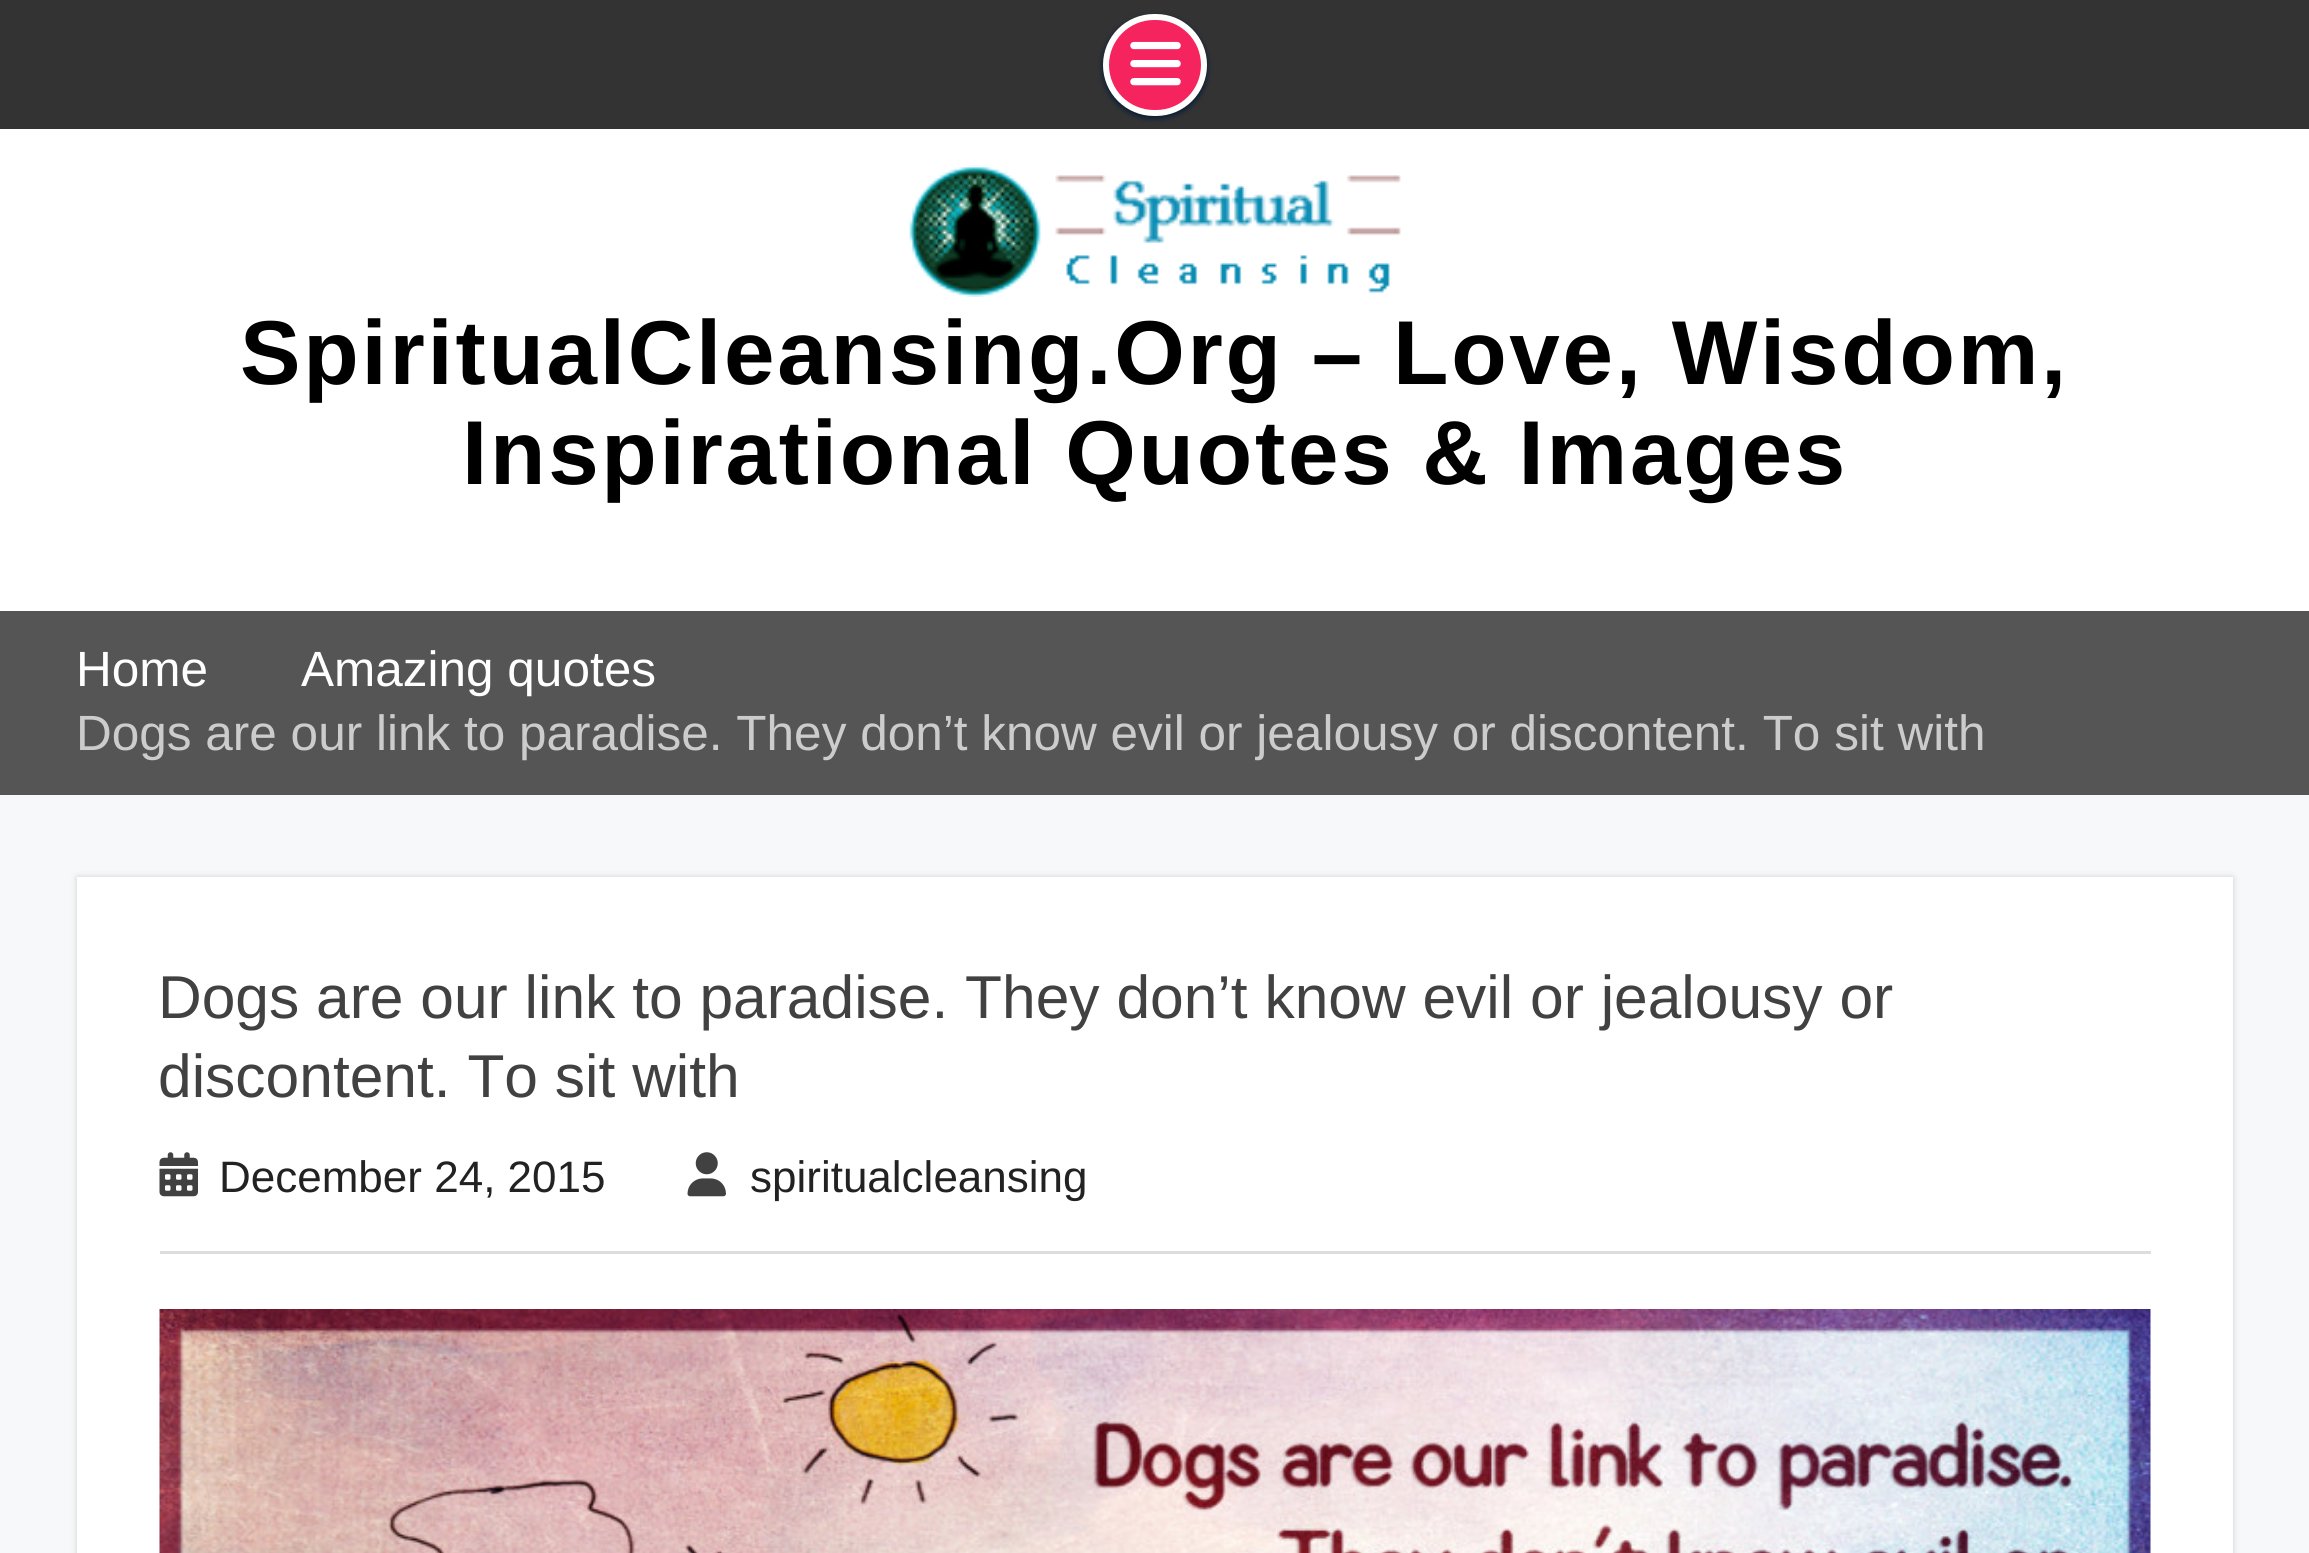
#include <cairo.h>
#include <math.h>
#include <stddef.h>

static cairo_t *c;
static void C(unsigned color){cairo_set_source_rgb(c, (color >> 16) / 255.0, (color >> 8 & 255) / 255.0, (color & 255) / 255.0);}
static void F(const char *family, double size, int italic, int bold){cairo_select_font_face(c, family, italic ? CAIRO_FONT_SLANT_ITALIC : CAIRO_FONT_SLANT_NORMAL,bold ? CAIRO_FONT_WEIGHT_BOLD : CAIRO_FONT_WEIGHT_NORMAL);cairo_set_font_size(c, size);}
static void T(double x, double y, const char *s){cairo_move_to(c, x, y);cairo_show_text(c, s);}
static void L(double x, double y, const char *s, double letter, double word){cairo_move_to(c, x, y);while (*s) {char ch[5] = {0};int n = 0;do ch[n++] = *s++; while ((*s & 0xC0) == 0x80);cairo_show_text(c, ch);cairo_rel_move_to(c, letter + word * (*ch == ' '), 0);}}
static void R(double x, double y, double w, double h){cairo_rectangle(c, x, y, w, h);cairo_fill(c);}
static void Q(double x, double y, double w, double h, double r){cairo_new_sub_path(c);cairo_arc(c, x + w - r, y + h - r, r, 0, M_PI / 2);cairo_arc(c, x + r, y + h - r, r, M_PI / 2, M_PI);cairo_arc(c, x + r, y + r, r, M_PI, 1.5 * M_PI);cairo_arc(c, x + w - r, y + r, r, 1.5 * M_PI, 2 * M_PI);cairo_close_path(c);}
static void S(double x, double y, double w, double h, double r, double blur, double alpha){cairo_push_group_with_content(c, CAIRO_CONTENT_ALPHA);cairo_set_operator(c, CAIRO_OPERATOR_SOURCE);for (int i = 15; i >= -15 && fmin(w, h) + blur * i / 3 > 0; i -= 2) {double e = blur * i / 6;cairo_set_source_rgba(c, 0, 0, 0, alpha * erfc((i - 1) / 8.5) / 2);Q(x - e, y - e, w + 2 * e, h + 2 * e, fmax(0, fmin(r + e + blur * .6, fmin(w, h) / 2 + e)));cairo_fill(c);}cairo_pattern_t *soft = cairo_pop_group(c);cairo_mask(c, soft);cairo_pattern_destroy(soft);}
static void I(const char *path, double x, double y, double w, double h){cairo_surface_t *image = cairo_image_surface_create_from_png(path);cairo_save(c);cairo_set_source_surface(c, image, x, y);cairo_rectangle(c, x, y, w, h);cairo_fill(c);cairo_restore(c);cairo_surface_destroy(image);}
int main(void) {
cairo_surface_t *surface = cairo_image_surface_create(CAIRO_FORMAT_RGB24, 2309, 1553);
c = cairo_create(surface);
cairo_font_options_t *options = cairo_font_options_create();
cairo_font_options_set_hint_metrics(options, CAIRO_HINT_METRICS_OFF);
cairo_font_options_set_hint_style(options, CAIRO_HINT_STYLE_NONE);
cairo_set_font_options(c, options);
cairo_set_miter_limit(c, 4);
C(0xffffff);
cairo_paint(c);
C(0x333333);
R(0,0,2309,129);
C(0x001837);
S(1103,17,104,101,50.5,3,1);
C(0xf5245f);
Q(1106,17,98,96,48);
cairo_fill_preserve(c);
C(0xfffffe);
cairo_set_line_width(c,6);
cairo_stroke(c);
I("1.png",1130,41,51,45);
I("2.png",909,165,492,132);
F("Liberation Sans",90.75,0,1);
C(0x000000);
L(240,384,"SpiritualCleansing.Org – Love, Wisdom,",2.75,0);
L(462,484,"Inspirational Quotes & Images",2.75,0);
C(0x555555);
R(0,611,2309,184);
F("Liberation Sans",49.5,0,0);
C(0xffffff);
T(76,686,"Home");
T(301,686,"Amazing quotes");
C(0xcccccc);
T(76,750,"Dogs are our link to paradise. They don’t know evil or jealousy or discontent. To sit with");
C(0xf7f8fa);
R(0,795,2309,758);
C(0xcfcfcf);
S(77,877,2156,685,0,3,1);
C(0xffffff);
R(77,877,2156,676);
F("Liberation Sans",60.5,0,0);
C(0x414141);
T(158,1018,"Dogs are our link to paradise. They don’t know evil or jealousy or");
T(158,1097,"discontent. To sit with");
C(0xdddddd);
R(160,1251,1991,3);
I("3.png",159,1152,39,45);
F("Liberation Sans",44,0,0);
C(0x222222);
T(219,1192,"December 24, 2015");
I("4.png",687,1152,39,45);
T(750,1192,"spiritualcleansing");
I("5.png",159,1309,1992,244);
cairo_surface_write_to_png(surface, "o.png");
cairo_font_options_destroy(options);
cairo_destroy(c);
cairo_surface_destroy(surface);
return 0;
}
